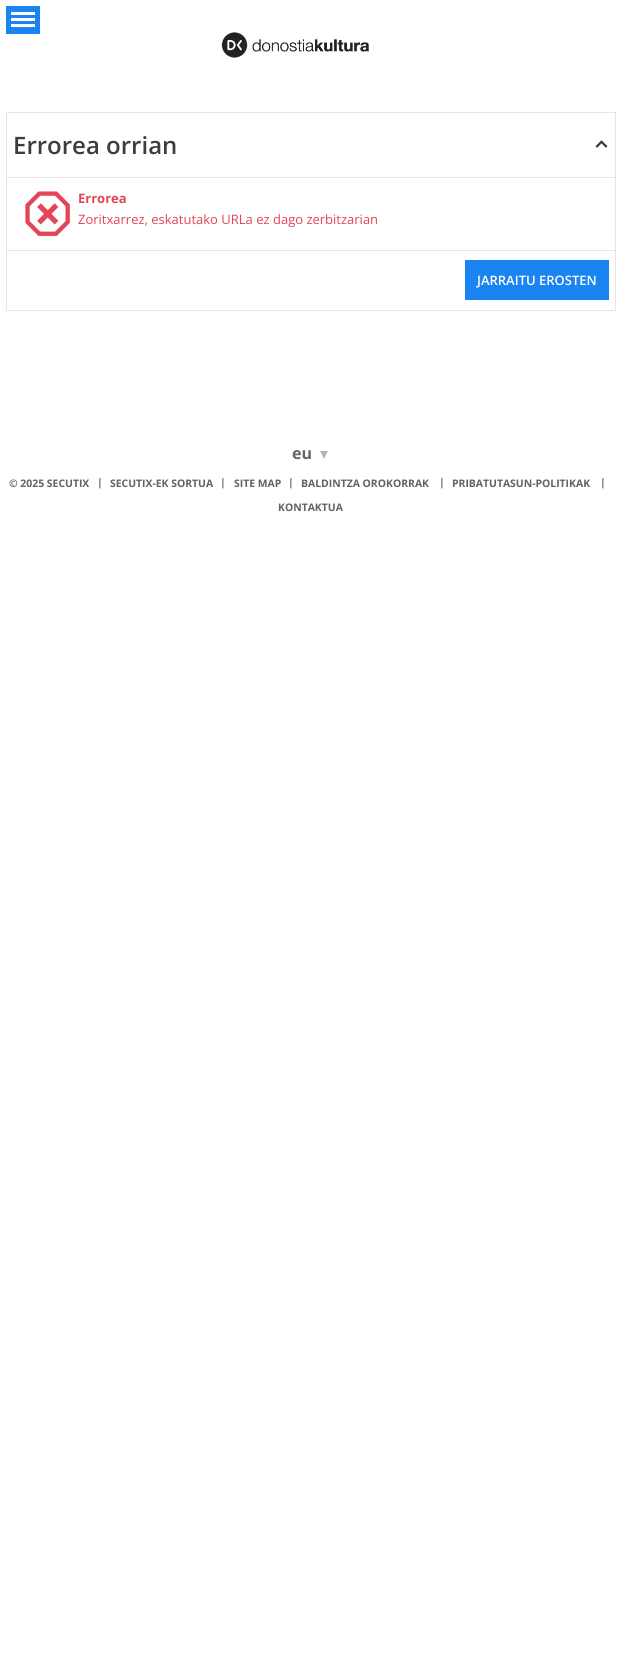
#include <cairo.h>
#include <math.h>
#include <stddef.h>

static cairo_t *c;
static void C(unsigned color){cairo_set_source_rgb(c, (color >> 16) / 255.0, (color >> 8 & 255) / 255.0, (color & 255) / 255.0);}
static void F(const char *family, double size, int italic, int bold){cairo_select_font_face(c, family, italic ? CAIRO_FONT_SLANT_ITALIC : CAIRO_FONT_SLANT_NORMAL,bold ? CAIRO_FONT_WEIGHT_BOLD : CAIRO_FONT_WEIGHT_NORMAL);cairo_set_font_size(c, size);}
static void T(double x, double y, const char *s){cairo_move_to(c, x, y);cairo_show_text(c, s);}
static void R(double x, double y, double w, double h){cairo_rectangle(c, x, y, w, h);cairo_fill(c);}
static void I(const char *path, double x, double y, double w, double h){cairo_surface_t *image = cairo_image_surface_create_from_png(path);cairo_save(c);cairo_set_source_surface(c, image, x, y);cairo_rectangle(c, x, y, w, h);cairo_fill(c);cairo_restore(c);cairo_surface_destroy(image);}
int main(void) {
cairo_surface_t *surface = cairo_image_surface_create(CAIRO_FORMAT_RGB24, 620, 1668);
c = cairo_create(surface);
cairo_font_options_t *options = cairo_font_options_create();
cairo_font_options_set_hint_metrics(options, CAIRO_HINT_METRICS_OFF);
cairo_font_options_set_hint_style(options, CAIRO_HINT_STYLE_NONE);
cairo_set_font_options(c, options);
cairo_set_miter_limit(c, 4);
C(0xffffff);
cairo_paint(c);
C(0x1a84f1);
R(6,6,34,28);
C(0xffffff);
R(11,12,24,3);
R(11,18,24,3);
R(11,24,24,3);
I("1.png",221,32,148,26);
cairo_rectangle(c,6.5,112.5,609,198);
C(0xe6e6e6);
cairo_set_line_width(c,1);
cairo_stroke(c);
R(7,177,608,1);
I("2.png",595,140,13,8);
F("Open Sans SemiBold",24,0,0);
C(0x3b3d40);
T(13,154,"Errorea orrian");
C(0xe6e6e6);
R(7,250,608,1);
F("Open Sans",13,0,1);
C(0xe54554);
T(78,203,"Errorea");
I("3.png",25,191,45,45);
F("Open Sans",13,0,0);
T(78,224,"Zoritxarrez, eskatutako URLa ez dago zerbitzarian");
C(0x1a84f1);
R(465,260,144,40);
F("Open Sans SemiBold",13,0,0);
C(0xffffff);
T(477,285,"JARRAITU EROSTEN");
F("Open Sans",16,0,1);
C(0x626262);
T(292,459,"eu");
C(0xb4b4b4);
cairo_new_path(c);
cairo_move_to(c,320,451);
cairo_line_to(c,328,451);
cairo_line_to(c,324,459);
cairo_close_path(c);
cairo_fill(c);
F("Open Sans",10.4,0,1);
C(0x626262);
T(9,487,"© 2025 SECUTIX");
T(97,486,"|");
T(110,487,"SECUTIX-EK SORTUA");
T(220,486,"|");
T(234,487,"SITE MAP");
T(288,486,"|");
T(301,487,"BALDINTZA OROKORRAK");
T(439,486,"|");
T(452,487,"PRIBATUTASUN-POLITIKAK");
T(600,486,"|");
T(278,511,"KONTAKTUA");
cairo_surface_write_to_png(surface, "o.png");
cairo_font_options_destroy(options);
cairo_destroy(c);
cairo_surface_destroy(surface);
return 0;
}
